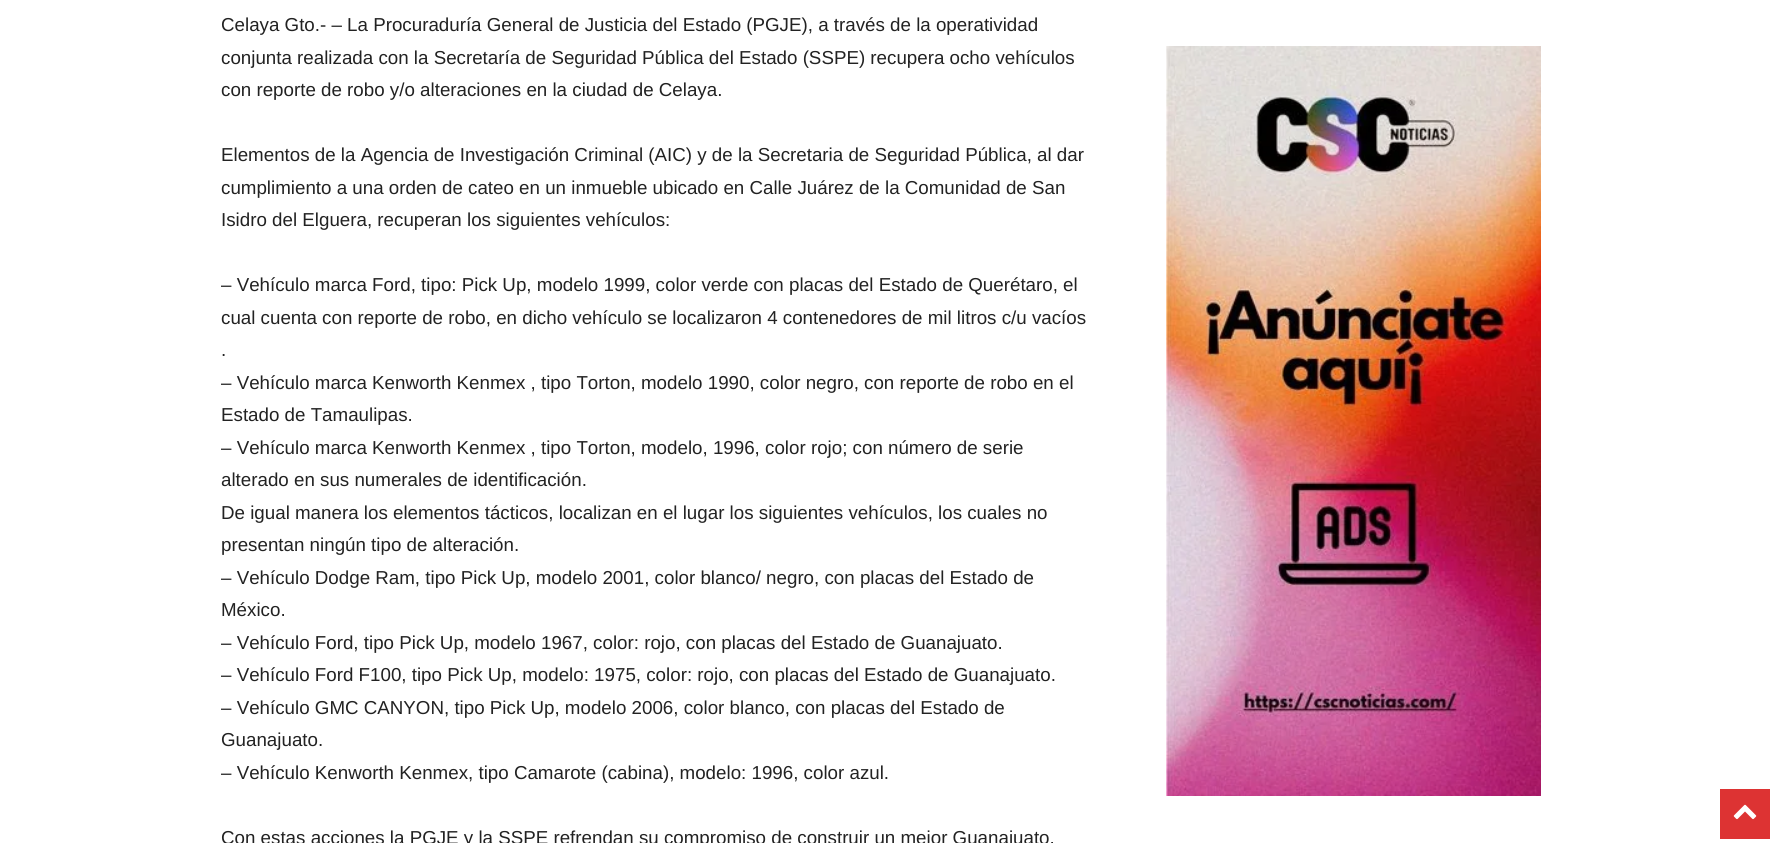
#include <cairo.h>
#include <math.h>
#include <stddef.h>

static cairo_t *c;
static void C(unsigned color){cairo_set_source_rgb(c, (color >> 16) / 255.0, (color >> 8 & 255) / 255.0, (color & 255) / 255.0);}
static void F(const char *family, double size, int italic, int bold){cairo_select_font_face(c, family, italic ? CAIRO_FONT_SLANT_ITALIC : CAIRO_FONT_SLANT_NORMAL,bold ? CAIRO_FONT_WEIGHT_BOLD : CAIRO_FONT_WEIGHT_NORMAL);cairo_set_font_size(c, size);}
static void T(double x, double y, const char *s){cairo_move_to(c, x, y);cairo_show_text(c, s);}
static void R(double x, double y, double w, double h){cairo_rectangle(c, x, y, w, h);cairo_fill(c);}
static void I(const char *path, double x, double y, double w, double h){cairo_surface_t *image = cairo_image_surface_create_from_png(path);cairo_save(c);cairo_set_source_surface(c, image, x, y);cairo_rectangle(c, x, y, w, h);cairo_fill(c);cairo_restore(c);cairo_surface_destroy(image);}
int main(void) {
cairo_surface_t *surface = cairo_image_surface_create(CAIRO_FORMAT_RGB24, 1776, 843);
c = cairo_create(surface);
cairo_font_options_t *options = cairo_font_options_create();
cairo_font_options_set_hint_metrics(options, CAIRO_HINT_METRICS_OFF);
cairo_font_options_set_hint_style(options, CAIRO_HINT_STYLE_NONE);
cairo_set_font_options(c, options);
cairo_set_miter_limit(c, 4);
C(0xffffff);
cairo_paint(c);
F("Liberation Sans",18.75,0,0);
C(0x222222);
T(221,31,"Celaya Gto.- – La Procuraduría General de Justicia del Estado (PGJE), a través de la operatividad");
T(221,64,"conjunta realizada con la Secretaría de Seguridad Pública del Estado (SSPE) recupera ocho vehículos");
T(221,96,"con reporte de robo y/o alteraciones en la ciudad de Celaya.");
T(221,161,"Elementos de la Agencia de Investigación Criminal (AIC) y de la Secretaria de Seguridad Pública, al dar");
T(221,194,"cumplimiento a una orden de cateo en un inmueble ubicado en Calle Juárez de la Comunidad de San");
T(221,226,"Isidro del Elguera, recuperan los siguientes vehículos:");
T(221,291,"– Vehículo marca Ford, tipo: Pick Up, modelo 1999, color verde con placas del Estado de Querétaro, el");
T(221,324,"cual cuenta con reporte de robo, en dicho vehículo se localizaron 4 contenedores de mil litros c/u vacíos");
T(221,356,".");
T(221,389,"– Vehículo marca Kenworth Kenmex , tipo Torton, modelo 1990, color negro, con reporte de robo en el");
T(221,421,"Estado de Tamaulipas.");
T(221,454,"– Vehículo marca Kenworth Kenmex , tipo Torton, modelo, 1996, color rojo; con número de serie");
T(221,486,"alterado en sus numerales de identificación.");
T(221,519,"De igual manera los elementos tácticos, localizan en el lugar los siguientes vehículos, los cuales no");
T(221,551,"presentan ningún tipo de alteración.");
T(221,584,"– Vehículo Dodge Ram, tipo Pick Up, modelo 2001, color blanco/ negro, con placas del Estado de");
T(221,616,"México.");
T(221,649,"– Vehículo Ford, tipo Pick Up, modelo 1967, color: rojo, con placas del Estado de Guanajuato.");
T(221,681,"– Vehículo Ford F100, tipo Pick Up, modelo: 1975, color: rojo, con placas del Estado de Guanajuato.");
T(221,714,"– Vehículo GMC CANYON, tipo Pick Up, modelo 2006, color blanco, con placas del Estado de");
T(221,746,"Guanajuato.");
T(221,779,"– Vehículo Kenworth Kenmex, tipo Camarote (cabina), modelo: 1996, color azul.");
T(221,844,"Con estas acciones la PGJE y la SSPE refrendan su compromiso de construir un mejor Guanajuato.");
I("1.png",1166,46,375,750);
C(0xdd3333);
R(1720,789,50,50);
I("2.png",1733,804,24,16);
cairo_surface_write_to_png(surface, "o.png");
cairo_font_options_destroy(options);
cairo_destroy(c);
cairo_surface_destroy(surface);
return 0;
}
